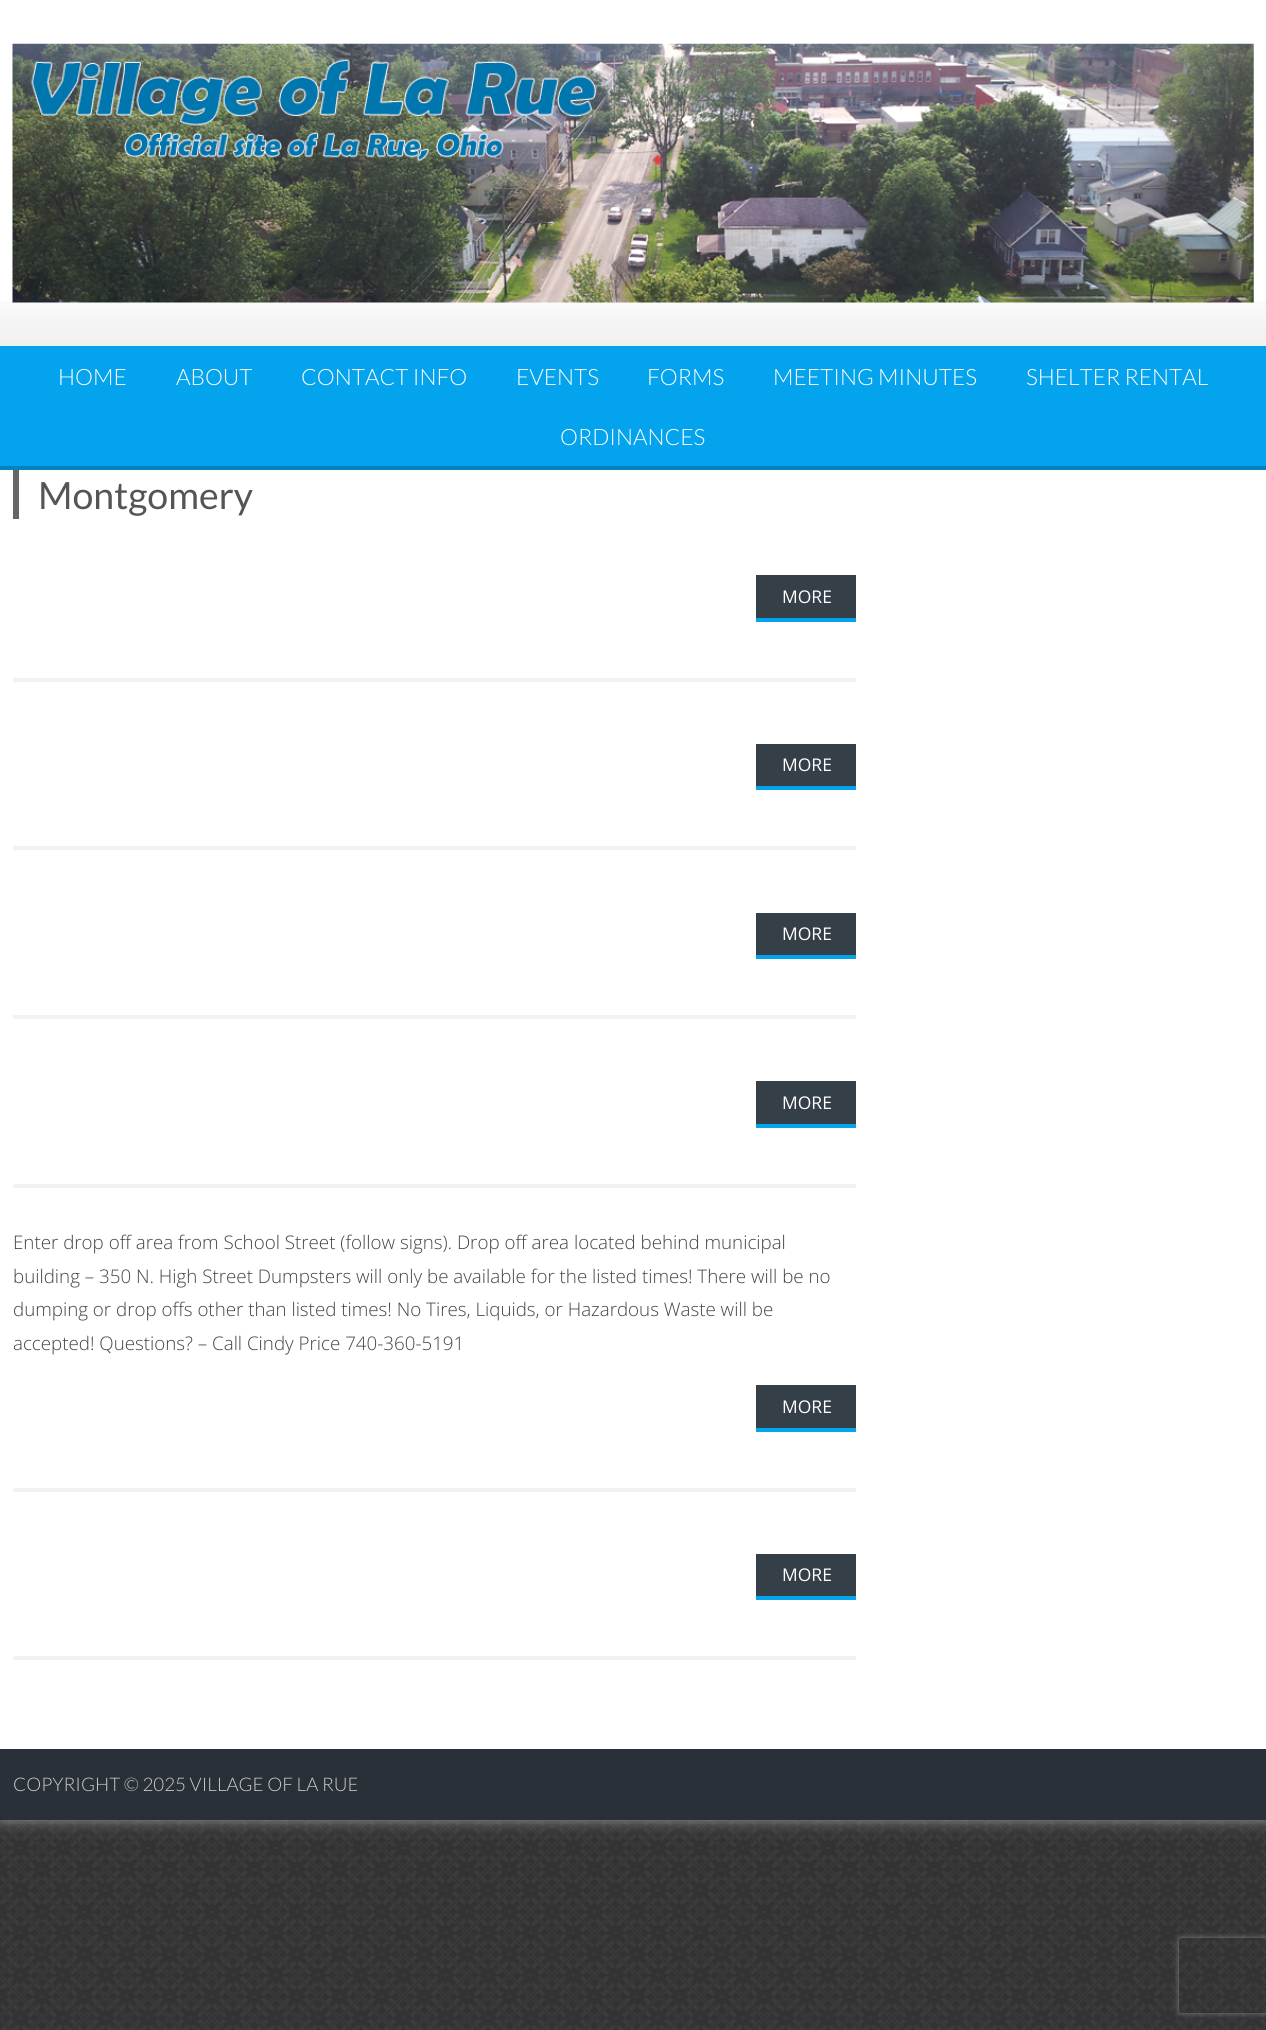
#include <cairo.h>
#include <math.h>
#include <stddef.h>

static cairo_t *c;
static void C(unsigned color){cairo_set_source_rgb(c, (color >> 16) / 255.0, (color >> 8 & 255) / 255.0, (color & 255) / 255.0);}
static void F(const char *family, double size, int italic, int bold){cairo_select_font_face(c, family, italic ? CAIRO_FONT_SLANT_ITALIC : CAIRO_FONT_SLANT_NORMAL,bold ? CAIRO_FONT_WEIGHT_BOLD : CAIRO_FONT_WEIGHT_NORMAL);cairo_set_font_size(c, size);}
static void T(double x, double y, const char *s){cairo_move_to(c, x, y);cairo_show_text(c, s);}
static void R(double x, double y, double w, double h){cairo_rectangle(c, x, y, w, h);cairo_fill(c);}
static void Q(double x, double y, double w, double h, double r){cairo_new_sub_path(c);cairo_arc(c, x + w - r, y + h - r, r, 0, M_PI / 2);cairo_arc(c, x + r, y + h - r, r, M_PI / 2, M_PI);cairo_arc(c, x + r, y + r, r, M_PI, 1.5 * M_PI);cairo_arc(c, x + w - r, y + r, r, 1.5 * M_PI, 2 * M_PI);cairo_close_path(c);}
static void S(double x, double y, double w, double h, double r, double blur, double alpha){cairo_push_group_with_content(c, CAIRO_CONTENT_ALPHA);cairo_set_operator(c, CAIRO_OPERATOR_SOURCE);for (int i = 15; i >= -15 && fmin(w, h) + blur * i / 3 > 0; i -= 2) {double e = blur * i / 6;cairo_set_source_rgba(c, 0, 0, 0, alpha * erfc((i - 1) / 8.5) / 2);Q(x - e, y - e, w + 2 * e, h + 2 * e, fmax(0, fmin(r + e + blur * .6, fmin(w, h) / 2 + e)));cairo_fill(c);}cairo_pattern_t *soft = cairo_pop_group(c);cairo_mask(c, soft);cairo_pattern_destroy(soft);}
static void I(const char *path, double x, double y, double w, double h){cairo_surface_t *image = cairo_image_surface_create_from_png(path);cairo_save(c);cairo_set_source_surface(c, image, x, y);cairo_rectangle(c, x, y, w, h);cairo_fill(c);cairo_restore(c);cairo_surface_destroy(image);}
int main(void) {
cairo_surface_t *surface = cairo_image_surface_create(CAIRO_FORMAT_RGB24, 1266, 2030);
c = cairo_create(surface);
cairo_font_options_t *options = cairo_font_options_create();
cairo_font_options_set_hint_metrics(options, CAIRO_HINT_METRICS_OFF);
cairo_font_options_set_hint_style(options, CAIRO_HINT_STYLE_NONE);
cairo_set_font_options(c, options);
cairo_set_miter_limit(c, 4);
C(0xffffff);
cairo_paint(c);
I("1.png",0,1820,1266,210);
C(0x999999);
S(0,0,1266,1820,0,7.5,1);
C(0xffffff);
R(0,0,1266,1749);
I("2.png",0,301,1266,45);
I("3.png",12,43,1242,260);
C(0x04a3ed);
R(0,346,1266,120);
C(0x0382be);
R(0,466,1266,4);
F("Lato Light",22.5,0,0);
C(0xffffff);
T(58,385,"HOME");
T(176,385,"ABOUT");
T(301,385,"CONTACT INFO");
T(516,385,"EVENTS");
T(647,385,"FORMS");
T(773,385,"MEETING MINUTES");
T(1026,385,"SHELTER RENTAL");
T(560,445,"ORDINANCES");
C(0x666666);
R(13,470,6,49);
F("Lato",37.5,0,0);
C(0x555555);
T(38,509,"Montgomery");
C(0xf1f2f3);
R(13,678,843,4);
C(0x353f47);
R(756,575,100,43);
C(0x04a3ed);
R(756,618,100,4);
F("Open Sans",17.5,0,0);
C(0xffffff);
T(782,603,"MORE");
C(0xf1f2f3);
R(13,846,843,4);
C(0x353f47);
R(756,744,100,42);
C(0x04a3ed);
R(756,786,100,4);
C(0xffffff);
T(782,771,"MORE");
C(0xf1f2f3);
R(13,1015,843,4);
C(0x353f47);
R(756,913,100,42);
C(0x04a3ed);
R(756,955,100,4);
C(0xffffff);
T(782,940,"MORE");
C(0xf1f2f3);
R(13,1184,843,4);
C(0x353f47);
R(756,1081,100,43);
C(0x04a3ed);
R(756,1124,100,4);
C(0xffffff);
T(782,1109,"MORE");
C(0xf1f2f3);
R(13,1488,843,4);
F("Open Sans Light",18.75,0,0);
C(0x444444);
T(13,1249,"Enter drop off area from School Street (follow signs). Drop off area located behind municipal");
T(13,1283,"building – 350 N. High Street Dumpsters will only be available for the listed times! There will be no");
T(13,1316,"dumping or drop offs other than listed times! No Tires, Liquids, or Hazardous Waste will be");
T(13,1350,"accepted! Questions? – Call Cindy Price 740-360-5191");
C(0x353f47);
R(756,1385,100,43);
C(0x04a3ed);
R(756,1428,100,4);
F("Open Sans",17.5,0,0);
C(0xffffff);
T(782,1413,"MORE");
C(0xf1f2f3);
R(13,1656,843,4);
C(0x353f47);
R(756,1554,100,42);
C(0x04a3ed);
R(756,1596,100,4);
C(0xffffff);
T(782,1581,"MORE");
C(0x293037);
R(0,1749,1266,71);
F("Lato Light",18.75,0,0);
C(0xcccccc);
T(13,1791,"COPYRIGHT © 2025 VILLAGE OF LA RUE");
cairo_save(c);
cairo_set_fill_rule(c,CAIRO_FILL_RULE_EVEN_ODD);
cairo_new_path(c);
cairo_move_to(c,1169,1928);
cairo_line_to(c,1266,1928);
cairo_line_to(c,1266,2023);
cairo_line_to(c,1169,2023);
cairo_close_path(c);
cairo_move_to(c,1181.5,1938);
cairo_line_to(c,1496.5,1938);
cairo_curve_to(c,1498,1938,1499,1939,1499,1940.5);
cairo_line_to(c,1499,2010.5);
cairo_curve_to(c,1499,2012,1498,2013,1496.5,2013);
cairo_line_to(c,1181.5,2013);
cairo_curve_to(c,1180,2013,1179,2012,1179,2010.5);
cairo_line_to(c,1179,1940.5);
cairo_curve_to(c,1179,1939,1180,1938,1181.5,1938);
cairo_close_path(c);
cairo_clip(c);
C(0x808080);
S(1179,1938,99,75,2.5,3,1);
cairo_restore(c);
cairo_surface_write_to_png(surface, "o.png");
cairo_font_options_destroy(options);
cairo_destroy(c);
cairo_surface_destroy(surface);
return 0;
}
